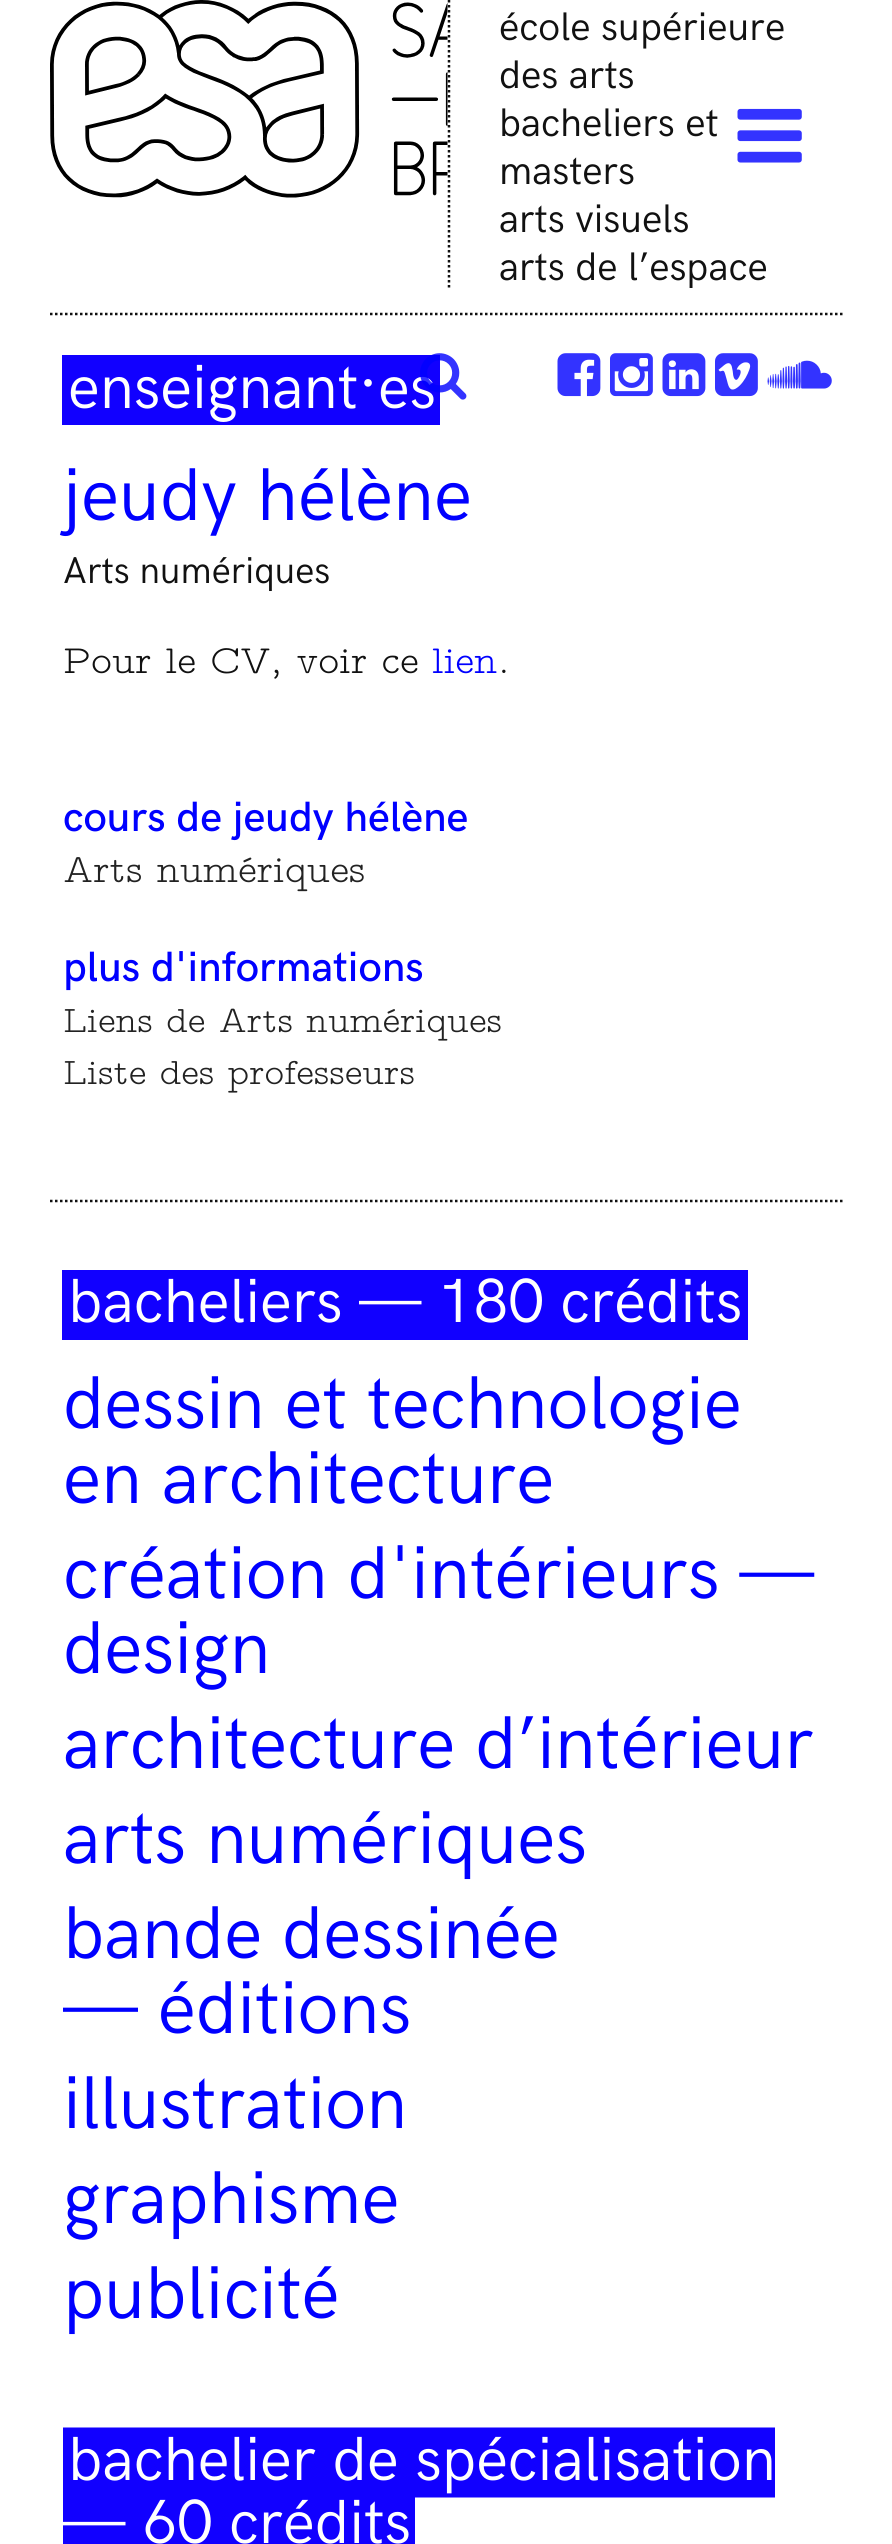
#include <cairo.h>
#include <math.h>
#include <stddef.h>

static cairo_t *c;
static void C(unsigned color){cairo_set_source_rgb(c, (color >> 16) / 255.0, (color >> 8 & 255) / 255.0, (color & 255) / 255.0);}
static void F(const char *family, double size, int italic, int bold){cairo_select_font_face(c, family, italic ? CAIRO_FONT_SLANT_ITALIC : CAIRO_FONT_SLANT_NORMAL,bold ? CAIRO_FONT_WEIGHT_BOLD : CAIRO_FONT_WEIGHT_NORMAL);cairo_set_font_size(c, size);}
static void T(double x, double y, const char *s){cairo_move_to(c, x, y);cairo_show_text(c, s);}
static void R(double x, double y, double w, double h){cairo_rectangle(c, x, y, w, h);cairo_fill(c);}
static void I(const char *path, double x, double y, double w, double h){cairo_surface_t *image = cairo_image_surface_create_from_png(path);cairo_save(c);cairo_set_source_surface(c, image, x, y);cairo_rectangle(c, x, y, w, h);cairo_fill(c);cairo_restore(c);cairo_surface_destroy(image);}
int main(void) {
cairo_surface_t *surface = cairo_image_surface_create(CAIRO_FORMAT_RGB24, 892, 2544);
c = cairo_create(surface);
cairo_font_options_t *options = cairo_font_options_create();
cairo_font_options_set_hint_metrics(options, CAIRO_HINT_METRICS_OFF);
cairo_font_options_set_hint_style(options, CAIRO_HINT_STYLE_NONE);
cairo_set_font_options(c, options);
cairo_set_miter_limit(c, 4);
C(0xffffff);
cairo_paint(c);
I("1.png",50,0,398,198);
cairo_new_path(c);
cairo_move_to(c,449,0);
cairo_line_to(c,449,287.5);
C(0x111111);
cairo_set_line_width(c,2.5);
cairo_set_dash(c,(double[]){2.5,2.5},2,0);
cairo_stroke(c);
F("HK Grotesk",40,0,0);
T(499,40,"école supérieure");
T(499,88,"des arts");
T(499,136,"bacheliers et");
T(499,184,"masters");
T(499,232,"arts visuels");
cairo_save(c);
cairo_rectangle(c,450,0,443,288);
cairo_clip(c);
T(499,280,"arts de l’espace");
cairo_restore(c);
I("2.png",737,108,65,55);
C(0x1100ff);
R(62,355,378,70);
F("HK Grotesk",62.5,0,0);
C(0xffffff);
T(68,408,"enseignant·es");
I("3.png",420,353,47,47);
I("4.png",557,353,44,44);
I("5.png",610,353,43,44);
I("6.png",662,353,44,44);
I("7.png",715,353,43,44);
I("8.png",767,360,65,29);
cairo_new_path(c);
cairo_move_to(c,50,314);
cairo_line_to(c,842.5,314);
C(0x111111);
cairo_stroke(c);
F("HK Grotesk",75,0,0);
C(0x0000ff);
T(63,520,"jeudy hélène");
F("HK Grotesk",37.5,0,0);
C(0x111111);
T(63,583,"Arts numériques");
F("Latin Modern Mono Prop Light",40,0,0);
T(63,673,"Pour le CV, voir ce");
C(0x0000ff);
T(432,673,"lien");
C(0x111111);
T(498,673,".");
F("HK Grotesk Medium",42.5,0,0);
C(0x0000ff);
T(63,831,"cours de jeudy hélène");
F("Latin Modern Mono Prop Light",40,0,0);
C(0x222222);
T(63,882,"Arts numériques");
F("HK Grotesk Medium",42.5,0,0);
C(0x0000ff);
T(63,981,"plus d'informations");
F("Latin Modern Mono Prop Light",37.5,0,0);
C(0x222222);
T(63,1032,"Liens de Arts numériques");
T(63,1084,"Liste des professeurs");
cairo_new_path(c);
cairo_move_to(c,50,1201);
cairo_line_to(c,842.5,1201);
C(0x111111);
cairo_stroke(c);
C(0x1100ff);
R(62,1270,686,70);
F("HK Grotesk",62.5,0,0);
C(0xffffff);
T(68,1322,"bacheliers — 180 crédits");
F("HK Grotesk",75,0,0);
C(0x0000ff);
T(63,1428,"dessin et technologie");
T(63,1503,"en architecture");
T(63,1598,"création d'intérieurs —");
T(63,1673,"design");
T(63,1768,"architecture d’intérieur");
T(63,1863,"arts numériques");
T(63,1958,"bande dessinée");
T(63,2033,"— éditions");
T(63,2128,"illustration");
T(63,2223,"graphisme");
T(63,2318,"publicité");
I("9.png",63,2427,712,117);
F("HK Grotesk",62.5,0,0);
C(0xffffff);
T(68,2480,"bachelier de spécialisation");
T(63,2543,"— 60 crédits");
cairo_surface_write_to_png(surface, "o.png");
cairo_font_options_destroy(options);
cairo_destroy(c);
cairo_surface_destroy(surface);
return 0;
}
